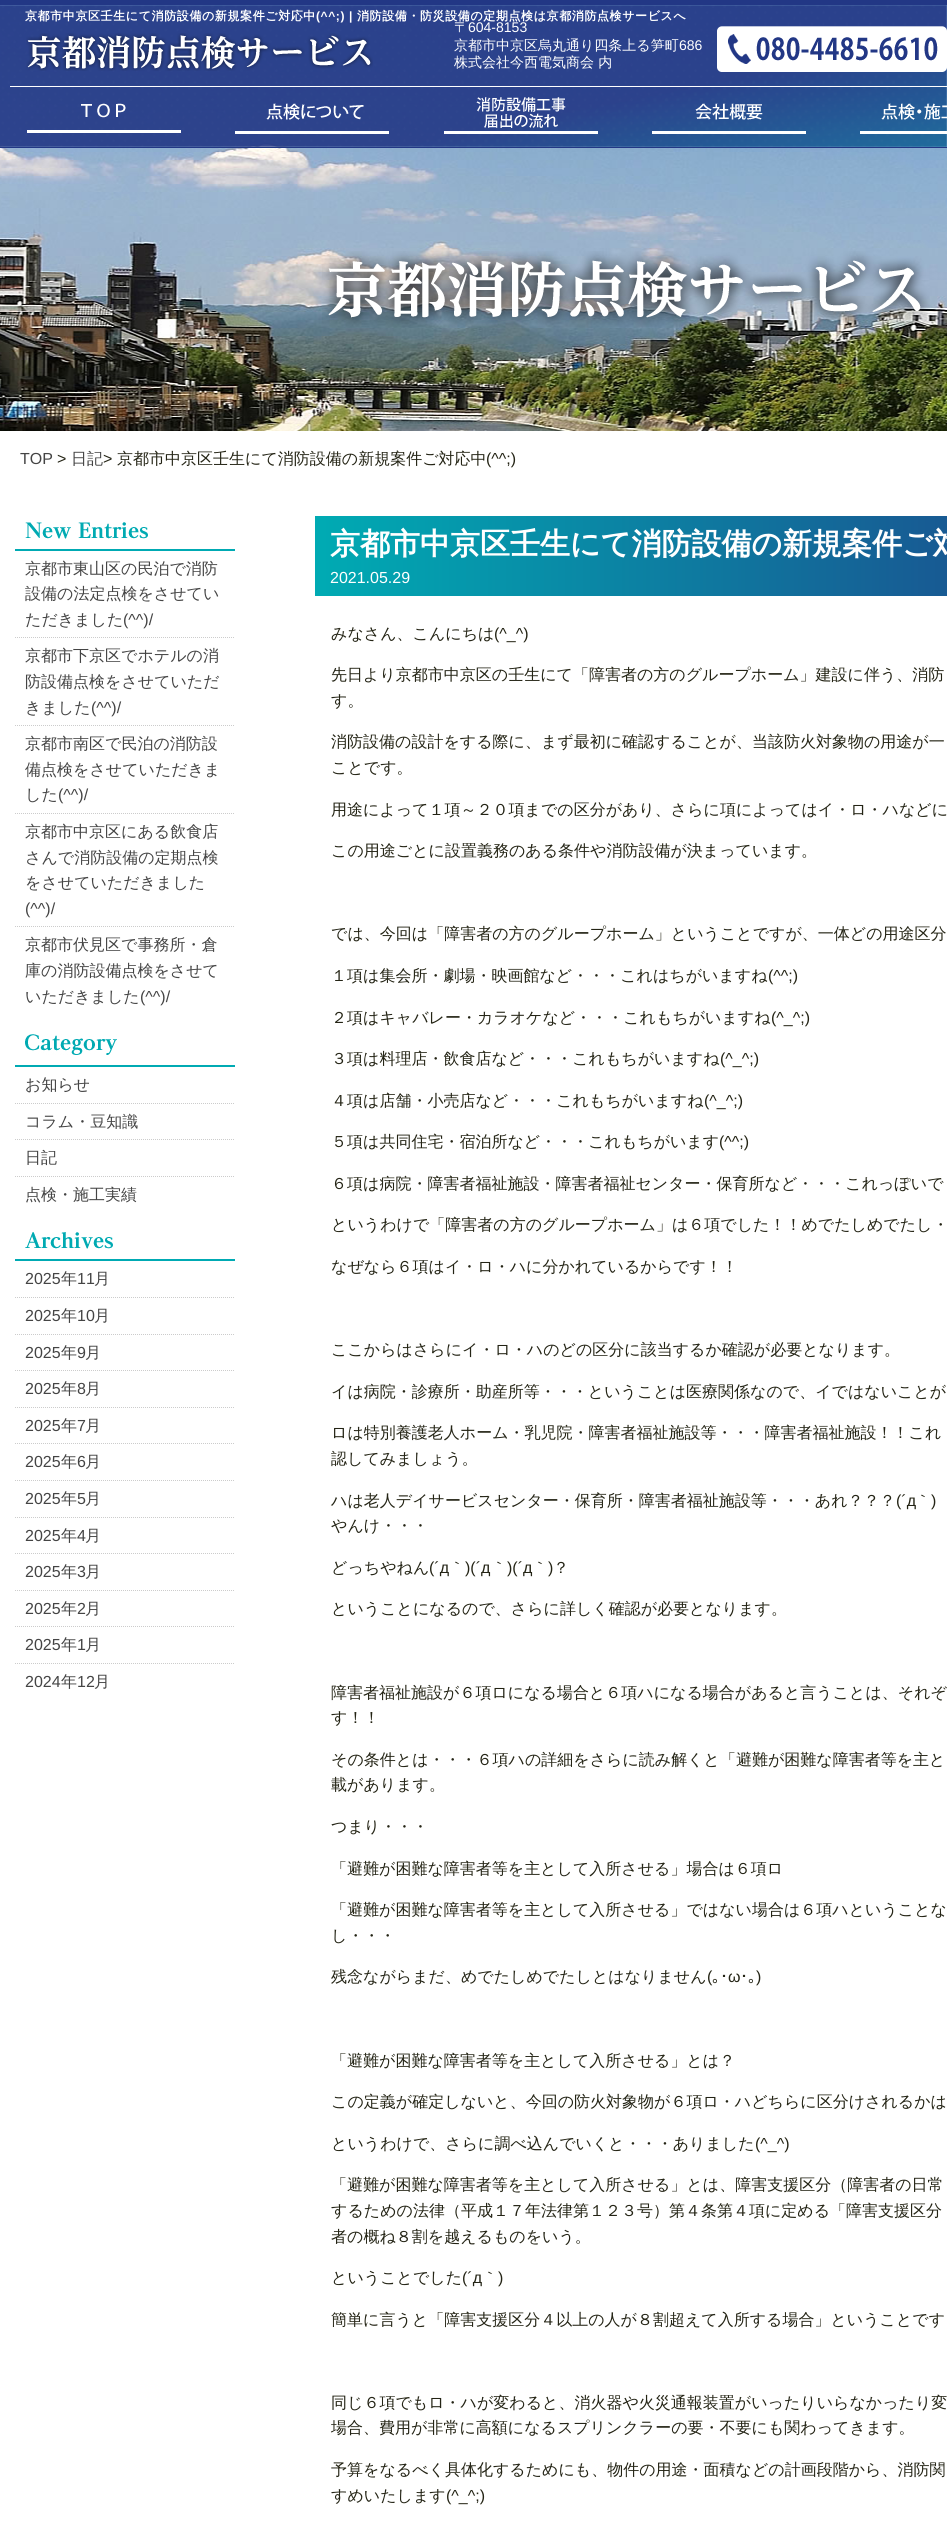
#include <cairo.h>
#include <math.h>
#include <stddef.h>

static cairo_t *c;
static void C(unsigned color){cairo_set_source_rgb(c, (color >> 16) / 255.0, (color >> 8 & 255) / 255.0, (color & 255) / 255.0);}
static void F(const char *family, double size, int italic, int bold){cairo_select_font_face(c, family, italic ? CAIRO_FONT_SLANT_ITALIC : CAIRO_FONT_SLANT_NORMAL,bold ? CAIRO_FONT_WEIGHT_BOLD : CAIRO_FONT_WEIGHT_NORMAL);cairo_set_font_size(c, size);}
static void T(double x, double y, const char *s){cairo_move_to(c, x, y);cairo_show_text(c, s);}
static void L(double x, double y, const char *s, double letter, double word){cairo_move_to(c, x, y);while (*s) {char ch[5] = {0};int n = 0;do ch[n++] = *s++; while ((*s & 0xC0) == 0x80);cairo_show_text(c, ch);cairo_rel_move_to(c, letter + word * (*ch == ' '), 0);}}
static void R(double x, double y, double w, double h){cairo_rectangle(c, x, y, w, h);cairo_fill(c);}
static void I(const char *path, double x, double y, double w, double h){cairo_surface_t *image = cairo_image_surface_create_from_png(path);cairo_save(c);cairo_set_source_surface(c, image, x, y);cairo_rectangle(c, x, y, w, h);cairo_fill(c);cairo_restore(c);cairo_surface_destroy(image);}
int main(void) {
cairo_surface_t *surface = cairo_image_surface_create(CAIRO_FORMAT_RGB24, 947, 2526);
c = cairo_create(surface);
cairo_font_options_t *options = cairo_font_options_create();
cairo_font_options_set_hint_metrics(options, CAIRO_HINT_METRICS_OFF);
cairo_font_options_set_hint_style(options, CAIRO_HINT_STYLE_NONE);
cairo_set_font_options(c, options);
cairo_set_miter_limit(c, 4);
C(0xffffff);
cairo_paint(c);
I("1.png",0,5,947,426);
I("2.png",0,5,947,142);
C(0x223785);
R(0,0,947,5);
R(0,147,947,1);
F("WenQuanYi Zen Hei",12,0,1);
C(0xffffff);
L(25,20,"京都市中京区壬生にて消防設備の新規案件ご対応中",.6,0);
F("Liberation Sans",12,0,1);
L(316,20,"(^^;) |",.6,0);
F("WenQuanYi Zen Hei",12,0,1);
L(357,20,"消防設備・防災設備の定期点検は京都消防点検サービスへ",.6,0);
I("3.png",26,33,347,38);
F("WenQuanYi Zen Hei Medium",14,0,0);
T(454,32,"〒");
F("Liberation Sans",14,0,0);
T(468,32,"604-8153");
F("WenQuanYi Zen Hei Medium",14,0,0);
T(454,50,"京都市中京区烏丸通り四条上る笋町");
F("Liberation Sans",14,0,0);
T(679,50,"686");
F("WenQuanYi Zen Hei Medium",14,0,0);
T(454,67,"株式会社今西電気商会 内");
I("4.png",717,26,230,46);
R(10,86,937,1);
I("5.png",27,103,154,30);
I("6.png",235,103,154,31);
I("7.png",444,97,154,37);
I("8.png",652,103,154,31);
I("9.png",860,103,87,31);
I("10.png",322,251,608,76);
F("Liberation Sans",16,0,0);
C(0x444444);
T(20,464,"TOP");
C(0x242415);
T(57,464,">");
F("WenQuanYi Zen Hei Medium",16,0,0);
C(0x444444);
T(71,464,"日記");
F("Liberation Sans",16,0,0);
C(0x242415);
T(103,464,">");
F("WenQuanYi Zen Hei Medium",16,0,0);
T(117,464,"京都市中京区壬生にて消防設備の新規案件ご対応中");
F("Liberation Sans",16,0,0);
T(486,464,"(^^;)");
C(0x00aab3);
R(15,549,220,2);
I("11.png",25,522,123,17);
F("WenQuanYi Zen Hei Medium",16,0,0);
C(0x444444);
T(25,574,"京都市東山区の民泊で消防");
T(25,599,"設備の法定点検をさせてい");
T(25,625,"ただきました");
F("Liberation Sans",16,0,0);
T(123,625,"(^^)/");
cairo_new_path(c);
cairo_move_to(c,15,637.5);
cairo_line_to(c,235,637.5);
C(0xcccccc);
cairo_set_line_width(c,1);
cairo_set_dash(c,(double[]){1,1},2,0);
cairo_stroke(c);
F("WenQuanYi Zen Hei Medium",16,0,0);
C(0x444444);
T(25,661,"京都市下京区でホテルの消");
T(25,687,"防設備点検をさせていただ");
T(25,713,"きました");
F("Liberation Sans",16,0,0);
T(91,713,"(^^)/");
cairo_new_path(c);
cairo_move_to(c,15,725.5);
cairo_line_to(c,235,725.5);
C(0xcccccc);
cairo_stroke(c);
F("WenQuanYi Zen Hei Medium",16,0,0);
C(0x444444);
T(25,749,"京都市南区で民泊の消防設");
T(25,775,"備点検をさせていただきま");
T(25,800,"した");
F("Liberation Sans",16,0,0);
T(58,800,"(^^)/");
cairo_new_path(c);
cairo_move_to(c,15,813.5);
cairo_line_to(c,235,813.5);
C(0xcccccc);
cairo_stroke(c);
F("WenQuanYi Zen Hei Medium",16,0,0);
C(0x444444);
T(25,837,"京都市中京区にある飲食店");
T(25,863,"さんで消防設備の定期点検");
T(25,888,"をさせていただきました");
F("Liberation Sans",16,0,0);
T(25,914,"(^^)/");
cairo_new_path(c);
cairo_move_to(c,15,926.5);
cairo_line_to(c,235,926.5);
C(0xcccccc);
cairo_stroke(c);
F("WenQuanYi Zen Hei Medium",16,0,0);
C(0x444444);
T(25,950,"京都市伏見区で事務所・倉");
T(25,976,"庫の消防設備点検をさせて");
T(25,1002,"いただきました");
F("Liberation Sans",16,0,0);
T(140,1002,"(^^)/");
C(0x00aab3);
R(15,1065,220,2);
I("12.png",25,1034,92,21);
F("WenQuanYi Zen Hei Medium",16,0,0);
C(0x444444);
T(25,1090,"お知らせ");
cairo_new_path(c);
cairo_move_to(c,15,1103.5);
cairo_line_to(c,235,1103.5);
C(0xcccccc);
cairo_stroke(c);
C(0x444444);
T(25,1127,"コラム・豆知識");
cairo_new_path(c);
cairo_move_to(c,15,1139.5);
cairo_line_to(c,235,1139.5);
C(0xcccccc);
cairo_stroke(c);
C(0x444444);
T(25,1163,"日記");
cairo_new_path(c);
cairo_move_to(c,15,1176.5);
cairo_line_to(c,235,1176.5);
C(0xcccccc);
cairo_stroke(c);
C(0x444444);
T(25,1200,"点検・施工実績");
C(0x00aab3);
R(15,1259,220,2);
I("13.png",25,1232,88,17);
F("Liberation Sans",16,0,0);
C(0x444444);
T(25,1284,"2025");
F("WenQuanYi Zen Hei Medium",16,0,0);
T(61,1284,"年");
F("Liberation Sans",16,0,0);
T(77,1284,"11");
F("WenQuanYi Zen Hei Medium",16,0,0);
T(94,1284,"月");
cairo_new_path(c);
cairo_move_to(c,15,1297.5);
cairo_line_to(c,235,1297.5);
C(0xcccccc);
cairo_stroke(c);
F("Liberation Sans",16,0,0);
C(0x444444);
T(25,1321,"2025");
F("WenQuanYi Zen Hei Medium",16,0,0);
T(61,1321,"年");
F("Liberation Sans",16,0,0);
T(77,1321,"10");
F("WenQuanYi Zen Hei Medium",16,0,0);
T(94,1321,"月");
cairo_new_path(c);
cairo_move_to(c,15,1334.5);
cairo_line_to(c,235,1334.5);
C(0xcccccc);
cairo_stroke(c);
F("Liberation Sans",16,0,0);
C(0x444444);
T(25,1358,"2025");
F("WenQuanYi Zen Hei Medium",16,0,0);
T(61,1358,"年");
F("Liberation Sans",16,0,0);
T(77,1358,"9");
F("WenQuanYi Zen Hei Medium",16,0,0);
T(85,1358,"月");
cairo_new_path(c);
cairo_move_to(c,15,1370.5);
cairo_line_to(c,235,1370.5);
C(0xcccccc);
cairo_stroke(c);
F("Liberation Sans",16,0,0);
C(0x444444);
T(25,1394,"2025");
F("WenQuanYi Zen Hei Medium",16,0,0);
T(61,1394,"年");
F("Liberation Sans",16,0,0);
T(77,1394,"8");
F("WenQuanYi Zen Hei Medium",16,0,0);
T(85,1394,"月");
cairo_new_path(c);
cairo_move_to(c,15,1407.5);
cairo_line_to(c,235,1407.5);
C(0xcccccc);
cairo_stroke(c);
F("Liberation Sans",16,0,0);
C(0x444444);
T(25,1431,"2025");
F("WenQuanYi Zen Hei Medium",16,0,0);
T(61,1431,"年");
F("Liberation Sans",16,0,0);
T(77,1431,"7");
F("WenQuanYi Zen Hei Medium",16,0,0);
T(85,1431,"月");
cairo_new_path(c);
cairo_move_to(c,15,1443.5);
cairo_line_to(c,235,1443.5);
C(0xcccccc);
cairo_stroke(c);
F("Liberation Sans",16,0,0);
C(0x444444);
T(25,1467,"2025");
F("WenQuanYi Zen Hei Medium",16,0,0);
T(61,1467,"年");
F("Liberation Sans",16,0,0);
T(77,1467,"6");
F("WenQuanYi Zen Hei Medium",16,0,0);
T(85,1467,"月");
cairo_new_path(c);
cairo_move_to(c,15,1480.5);
cairo_line_to(c,235,1480.5);
C(0xcccccc);
cairo_stroke(c);
F("Liberation Sans",16,0,0);
C(0x444444);
T(25,1504,"2025");
F("WenQuanYi Zen Hei Medium",16,0,0);
T(61,1504,"年");
F("Liberation Sans",16,0,0);
T(77,1504,"5");
F("WenQuanYi Zen Hei Medium",16,0,0);
T(85,1504,"月");
cairo_new_path(c);
cairo_move_to(c,15,1517.5);
cairo_line_to(c,235,1517.5);
C(0xcccccc);
cairo_stroke(c);
F("Liberation Sans",16,0,0);
C(0x444444);
T(25,1541,"2025");
F("WenQuanYi Zen Hei Medium",16,0,0);
T(61,1541,"年");
F("Liberation Sans",16,0,0);
T(77,1541,"4");
F("WenQuanYi Zen Hei Medium",16,0,0);
T(85,1541,"月");
cairo_new_path(c);
cairo_move_to(c,15,1553.5);
cairo_line_to(c,235,1553.5);
C(0xcccccc);
cairo_stroke(c);
F("Liberation Sans",16,0,0);
C(0x444444);
T(25,1577,"2025");
F("WenQuanYi Zen Hei Medium",16,0,0);
T(61,1577,"年");
F("Liberation Sans",16,0,0);
T(77,1577,"3");
F("WenQuanYi Zen Hei Medium",16,0,0);
T(85,1577,"月");
cairo_new_path(c);
cairo_move_to(c,15,1590.5);
cairo_line_to(c,235,1590.5);
C(0xcccccc);
cairo_stroke(c);
F("Liberation Sans",16,0,0);
C(0x444444);
T(25,1614,"2025");
F("WenQuanYi Zen Hei Medium",16,0,0);
T(61,1614,"年");
F("Liberation Sans",16,0,0);
T(77,1614,"2");
F("WenQuanYi Zen Hei Medium",16,0,0);
T(85,1614,"月");
cairo_new_path(c);
cairo_move_to(c,15,1626.5);
cairo_line_to(c,235,1626.5);
C(0xcccccc);
cairo_stroke(c);
F("Liberation Sans",16,0,0);
C(0x444444);
T(25,1650,"2025");
F("WenQuanYi Zen Hei Medium",16,0,0);
T(61,1650,"年");
F("Liberation Sans",16,0,0);
T(77,1650,"1");
F("WenQuanYi Zen Hei Medium",16,0,0);
T(85,1650,"月");
cairo_new_path(c);
cairo_move_to(c,15,1663.5);
cairo_line_to(c,235,1663.5);
C(0xcccccc);
cairo_stroke(c);
F("Liberation Sans",16,0,0);
C(0x444444);
T(25,1687,"2024");
F("WenQuanYi Zen Hei Medium",16,0,0);
T(61,1687,"年");
F("Liberation Sans",16,0,0);
T(77,1687,"12");
F("WenQuanYi Zen Hei Medium",16,0,0);
T(94,1687,"月");
I("14.png",315,516,632,80);
F("WenQuanYi Zen Hei",30,0,1);
C(0xffffff);
T(330,554,"京都市中京区壬生にて消防設備の新規案件ご対");
F("Liberation Sans",16,0,0);
T(330,583,"2021.05.29");
F("WenQuanYi Zen Hei Medium",16,0,0);
C(0x242415);
T(331,639,"みなさん、こんにちは");
F("Liberation Sans",16,0,0);
T(494,639,"(^_^)");
F("WenQuanYi Zen Hei Medium",16,0,0);
T(331,680,"先日より京都市中京区の壬生にて「障害者の方のグループホーム」建設に伴う、消防");
T(331,706,"す。");
T(331,747,"消防設備の設計をする際に、まず最初に確認することが、当該防火対象物の用途が一");
T(331,773,"ことです。");
T(331,815,"用途によって１項～２０項までの区分があり、さらに項によってはイ・ロ・ハなどに");
T(331,856,"この用途ごとに設置義務のある条件や消防設備が決まっています。");
T(331,939,"では、今回は「障害者の方のグループホーム」ということですが、一体どの用途区分");
T(331,981,"１項は集会所・劇場・映画館など・・・これはちがいますね");
F("Liberation Sans",16,0,0);
T(768,981,"(^^;)");
F("WenQuanYi Zen Hei Medium",16,0,0);
T(331,1023,"２項はキャバレー・カラオケなど・・・これもちがいますね");
F("Liberation Sans",16,0,0);
T(771,1023,"(^_^;)");
F("WenQuanYi Zen Hei Medium",16,0,0);
T(331,1064,"３項は料理店・飲食店など・・・これもちがいますね");
F("Liberation Sans",16,0,0);
T(720,1064,"(^_^;)");
F("WenQuanYi Zen Hei Medium",16,0,0);
T(331,1106,"４項は店舗・小売店など・・・これもちがいますね");
F("Liberation Sans",16,0,0);
T(704,1106,"(^_^;)");
F("WenQuanYi Zen Hei Medium",16,0,0);
T(331,1147,"５項は共同住宅・宿泊所など・・・これもちがいます");
F("Liberation Sans",16,0,0);
T(719,1147,"(^^;)");
F("WenQuanYi Zen Hei Medium",16,0,0);
T(331,1189,"６項は病院・障害者福祉施設・障害者福祉センター・保育所など・・・これっぽいで");
T(331,1230,"というわけで「障害者の方のグループホーム」は６項でした！！めでたしめでたし・");
T(331,1272,"なぜなら６項はイ・ロ・ハに分かれているからです！！");
T(331,1355,"ここからはさらにイ・ロ・ハのどの区分に該当するか確認が必要となります。");
T(331,1397,"イは病院・診療所・助産所等・・・ということは医療関係なので、イではないことが");
T(331,1438,"ロは特別養護老人ホーム・乳児院・障害者福祉施設等・・・障害者福祉施設！！これ");
T(331,1464,"認してみましょう。");
T(331,1506,"ハは老人デイサービスセンター・保育所・障害者福祉施設等・・・あれ？？？");
F("Liberation Sans",16,0,0);
T(896,1506,"(´д");
F("WenQuanYi Zen Hei Medium",16,0,0);
T(915,1506,"｀");
F("Liberation Sans",16,0,0);
T(931,1506,")");
F("WenQuanYi Zen Hei Medium",16,0,0);
T(331,1531,"やんけ・・・");
T(331,1573,"どっちやねん");
F("Liberation Sans",16,0,0);
T(429,1573,"(´д");
F("WenQuanYi Zen Hei Medium",16,0,0);
T(449,1573,"｀");
F("Liberation Sans",16,0,0);
T(465,1573,")(´д");
F("WenQuanYi Zen Hei Medium",16,0,0);
T(491,1573,"｀");
F("Liberation Sans",16,0,0);
T(507,1573,")(´д");
F("WenQuanYi Zen Hei Medium",16,0,0);
T(532,1573,"｀");
F("Liberation Sans",16,0,0);
T(548,1573,")");
F("WenQuanYi Zen Hei Medium",16,0,0);
T(553,1573,"？");
T(331,1614,"ということになるので、さらに詳しく確認が必要となります。");
T(331,1698,"障害者福祉施設が６項ロになる場合と６項ハになる場合があると言うことは、それぞ");
T(331,1723,"す！！");
T(331,1765,"その条件とは・・・６項ハの詳細をさらに読み解くと「避難が困難な障害者等を主と");
T(331,1790,"載があります。");
T(331,1832,"つまり・・・");
T(331,1874,"「避難が困難な障害者等を主として入所させる」場合は６項ロ");
T(331,1915,"「避難が困難な障害者等を主として入所させる」ではない場合は６項ハということな");
T(331,1941,"し・・・");
T(331,1982,"残念ながらまだ、めでたしめでたしとはなりません");
F("Liberation Sans",16,0,0);
T(707,1982,"(");
F("IPAPGothic",16,0,0);
T(712,1982,"｡･");
F("Liberation Sans",16,0,0);
T(728,1982,"ω");
F("IPAPGothic",16,0,0);
T(740,1982,"･｡");
F("Liberation Sans",16,0,0);
T(756,1982,")");
F("WenQuanYi Zen Hei Medium",16,0,0);
T(331,2066,"「避難が困難な障害者等を主として入所させる」とは？");
T(331,2107,"この定義が確定しないと、今回の防火対象物が６項ロ・ハどちらに区分けされるかは");
T(331,2149,"というわけで、さらに調べ込んでいくと・・・ありました");
F("Liberation Sans",16,0,0);
T(755,2149,"(^_^)");
F("WenQuanYi Zen Hei Medium",16,0,0);
T(331,2190,"「避難が困難な障害者等を主として入所させる」とは、障害支援区分（障害者の日常");
T(331,2216,"するための法律（平成１７年法律第１２３号）第４条第４項に定める「障害支援区分");
T(331,2242,"者の概ね８割を越えるものをいう。");
T(331,2283,"ということでした");
F("Liberation Sans",16,0,0);
T(462,2283,"(´д");
F("WenQuanYi Zen Hei Medium",16,0,0);
T(482,2283,"｀");
F("Liberation Sans",16,0,0);
T(498,2283,")");
F("WenQuanYi Zen Hei Medium",16,0,0);
T(331,2325,"簡単に言うと「障害支援区分４以上の人が８割超えて入所する場合」ということです");
T(331,2408,"同じ６項でもロ・ハが変わると、消火器や火災通報装置がいったりいらなかったり変");
T(331,2433,"場合、費用が非常に高額になるスプリンクラーの要・不要にも関わってきます。");
T(331,2475,"予算をなるべく具体化するためにも、物件の用途・面積などの計画段階から、消防関");
T(331,2501,"すめいたします");
F("Liberation Sans",16,0,0);
T(446,2501,"(^_^;)");
cairo_surface_write_to_png(surface, "o.png");
cairo_font_options_destroy(options);
cairo_destroy(c);
cairo_surface_destroy(surface);
return 0;
}
